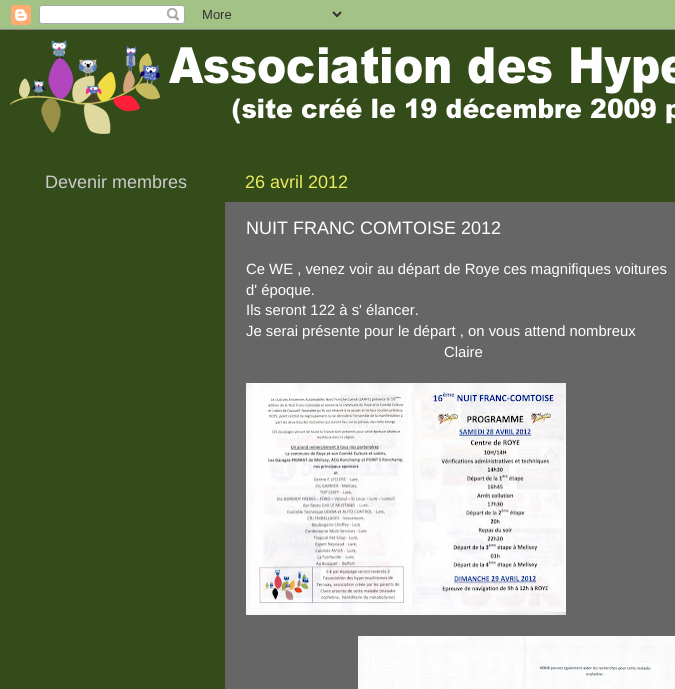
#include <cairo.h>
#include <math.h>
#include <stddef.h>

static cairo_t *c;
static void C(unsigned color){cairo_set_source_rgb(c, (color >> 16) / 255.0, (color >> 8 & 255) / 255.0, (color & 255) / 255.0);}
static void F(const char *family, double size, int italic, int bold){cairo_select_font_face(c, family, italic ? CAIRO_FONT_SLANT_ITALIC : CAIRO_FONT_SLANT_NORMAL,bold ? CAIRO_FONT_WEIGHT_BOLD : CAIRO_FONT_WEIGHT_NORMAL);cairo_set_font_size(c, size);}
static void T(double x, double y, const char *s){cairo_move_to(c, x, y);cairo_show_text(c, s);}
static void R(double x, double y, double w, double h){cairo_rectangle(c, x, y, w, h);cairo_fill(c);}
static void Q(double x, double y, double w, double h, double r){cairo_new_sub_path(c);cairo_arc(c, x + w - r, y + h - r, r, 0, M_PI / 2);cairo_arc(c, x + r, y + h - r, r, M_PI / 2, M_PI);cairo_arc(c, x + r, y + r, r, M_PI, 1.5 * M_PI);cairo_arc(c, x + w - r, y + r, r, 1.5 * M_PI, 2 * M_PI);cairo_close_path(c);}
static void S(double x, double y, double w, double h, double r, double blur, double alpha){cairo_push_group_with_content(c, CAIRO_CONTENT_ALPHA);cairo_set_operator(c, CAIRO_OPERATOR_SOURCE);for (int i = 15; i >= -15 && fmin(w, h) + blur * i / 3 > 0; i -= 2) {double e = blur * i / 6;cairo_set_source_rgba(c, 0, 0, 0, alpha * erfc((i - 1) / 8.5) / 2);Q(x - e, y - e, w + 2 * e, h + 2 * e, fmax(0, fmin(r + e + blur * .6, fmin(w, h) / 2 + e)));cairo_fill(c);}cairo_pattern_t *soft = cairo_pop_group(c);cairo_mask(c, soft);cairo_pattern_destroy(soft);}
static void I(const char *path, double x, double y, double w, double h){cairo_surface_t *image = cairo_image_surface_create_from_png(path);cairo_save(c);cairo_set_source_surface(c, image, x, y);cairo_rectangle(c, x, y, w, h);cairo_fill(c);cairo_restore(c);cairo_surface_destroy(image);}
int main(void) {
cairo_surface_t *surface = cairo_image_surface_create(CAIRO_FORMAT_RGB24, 675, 689);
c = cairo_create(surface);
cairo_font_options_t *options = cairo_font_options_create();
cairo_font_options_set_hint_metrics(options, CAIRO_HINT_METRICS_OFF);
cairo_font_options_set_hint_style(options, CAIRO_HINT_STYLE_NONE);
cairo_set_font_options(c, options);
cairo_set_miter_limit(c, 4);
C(0x669933);
cairo_paint(c);
C(0x000000);
S(0,30,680,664,0,1.5,.15);
I("1.png",0,0,675,30);
C(0x334c1a);
R(0,30,675,659);
I("2.png",10,40,665,94);
F("Liberation Sans",18,0,0);
C(0xcccccc);
T(45,188,"Devenir membres");
C(0xebeb5a);
T(245,188,"26 avril 2012");
C(0x666666);
R(225,202,450,487);
C(0xffffff);
T(246,234,"NUIT FRANC COMTOISE 2012");
F("Liberation Sans",14.85,0,0);
T(246,274,"Ce WE , venez voir au départ de Roye ces magnifiques voitures");
T(246,295,"d' époque.");
T(246,315,"Ils seront 122 à s' élancer.");
T(246,336,"Je serai présente pour le départ , on vous attend nombreux");
T(444,357,"Claire");
I("3.png",246,383,320,232);
I("4.png",358,636,317,53);
cairo_surface_write_to_png(surface, "o.png");
cairo_font_options_destroy(options);
cairo_destroy(c);
cairo_surface_destroy(surface);
return 0;
}
